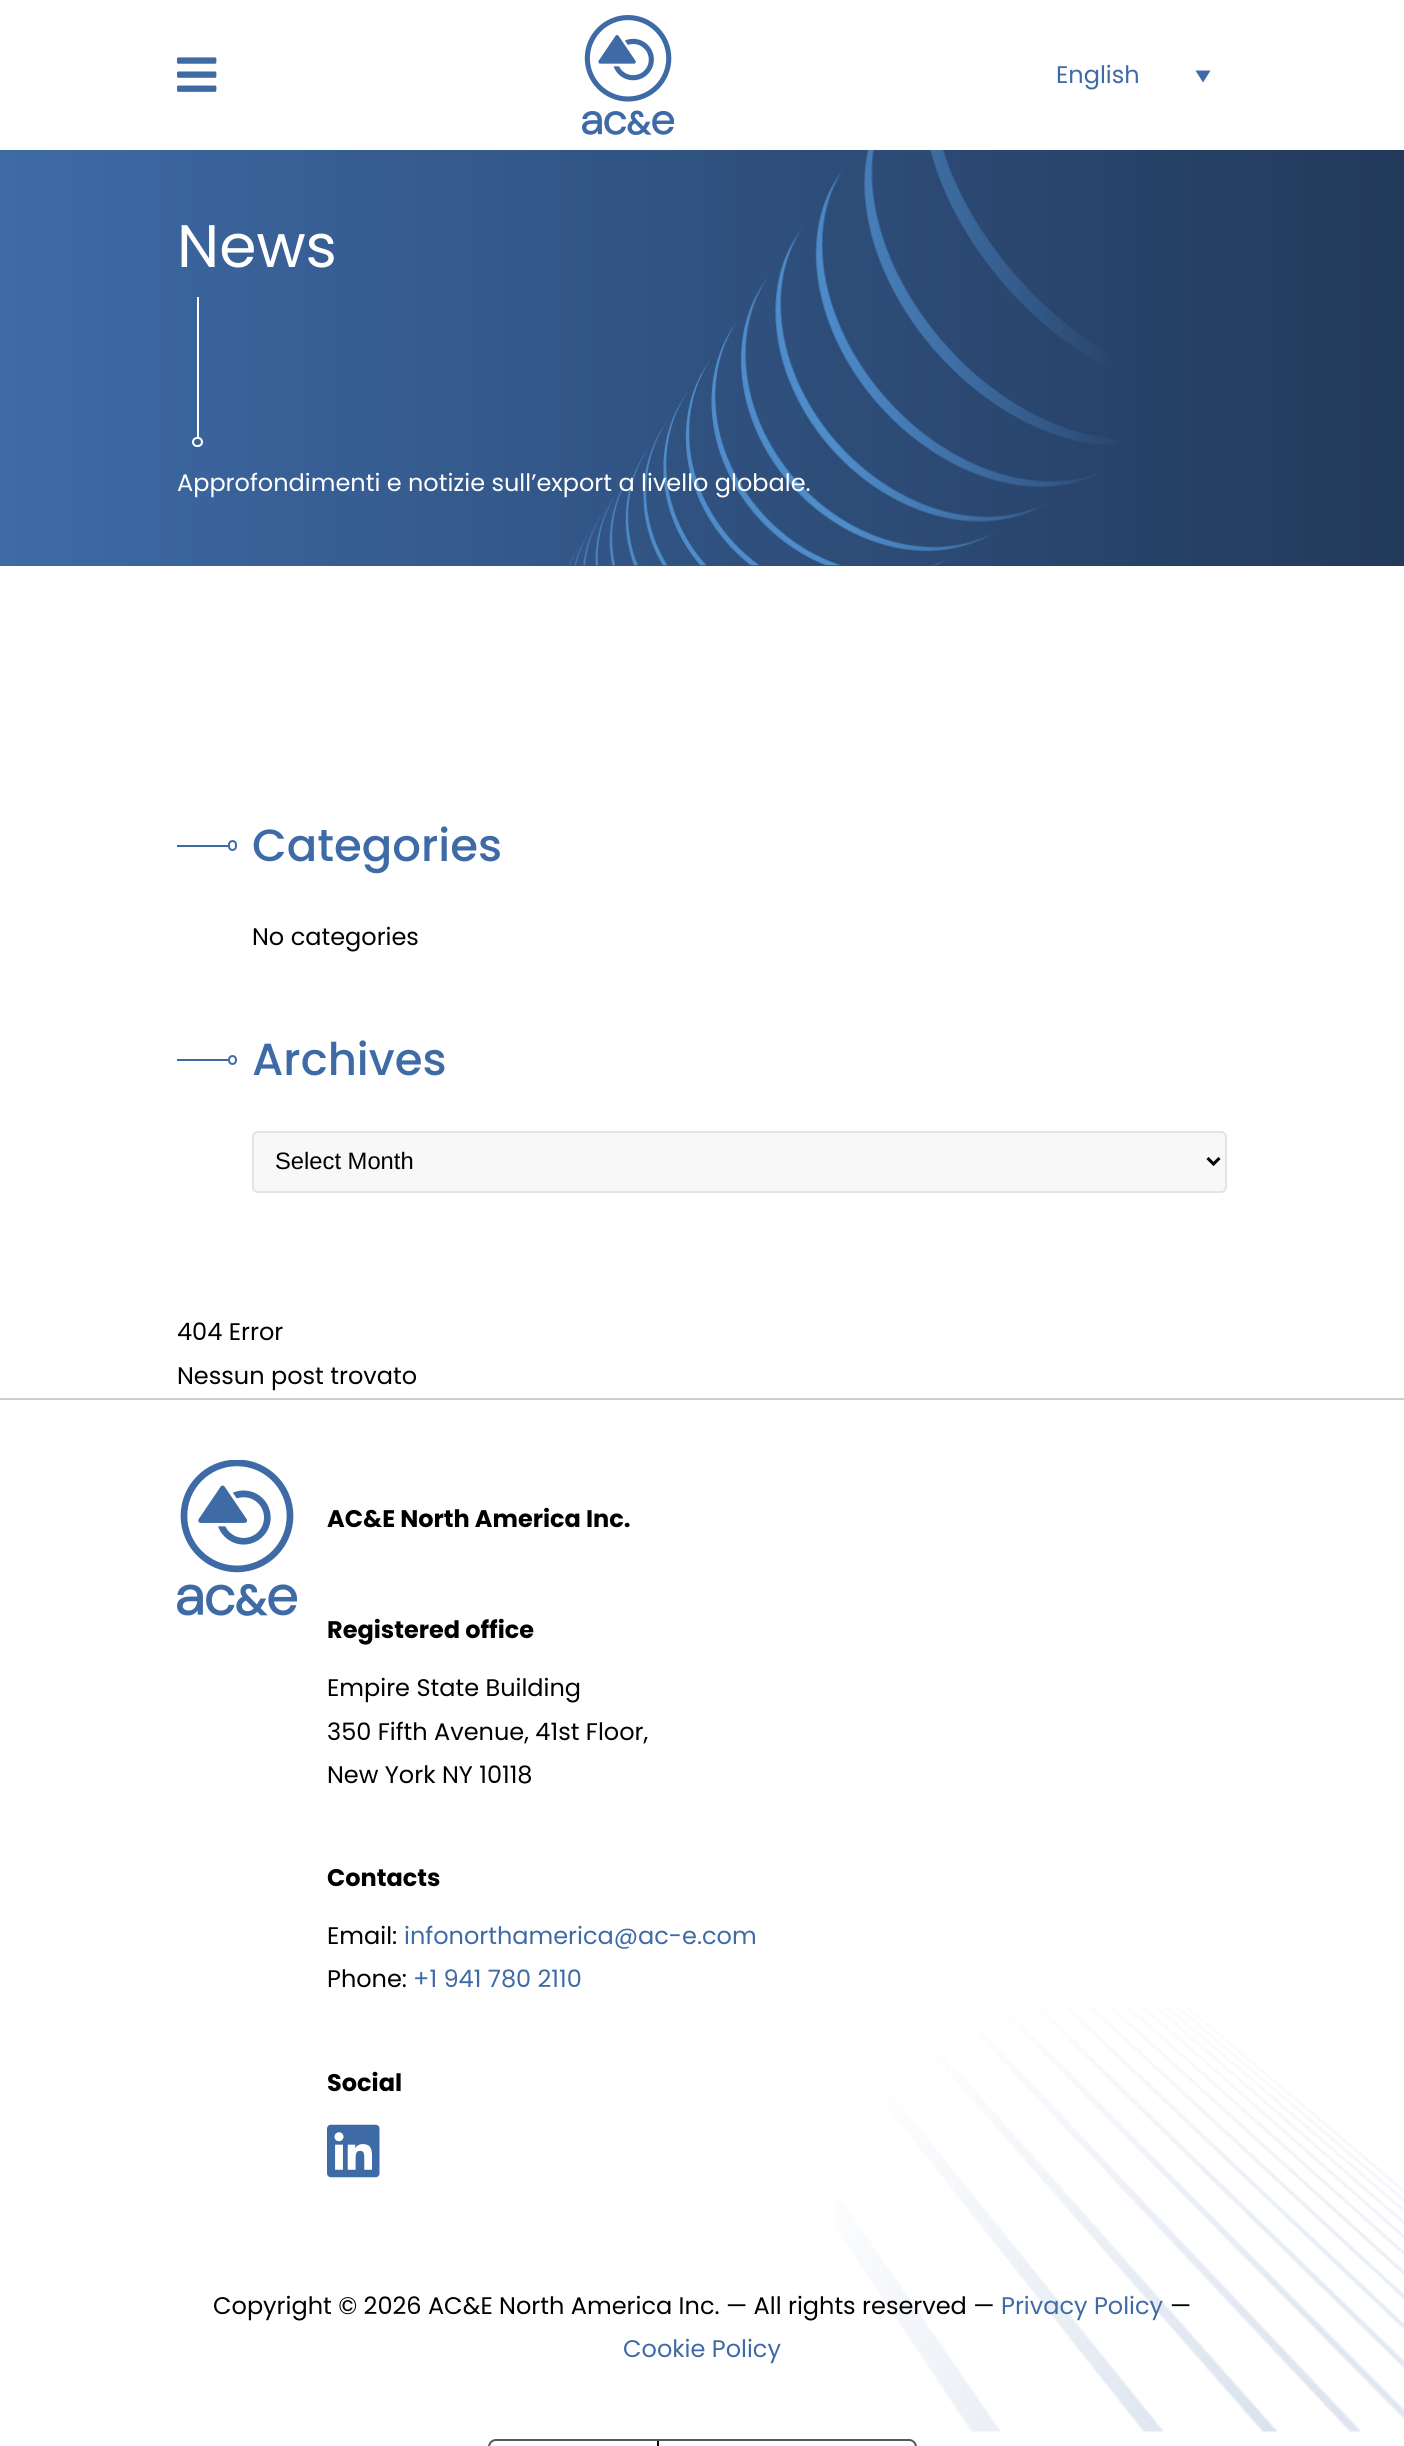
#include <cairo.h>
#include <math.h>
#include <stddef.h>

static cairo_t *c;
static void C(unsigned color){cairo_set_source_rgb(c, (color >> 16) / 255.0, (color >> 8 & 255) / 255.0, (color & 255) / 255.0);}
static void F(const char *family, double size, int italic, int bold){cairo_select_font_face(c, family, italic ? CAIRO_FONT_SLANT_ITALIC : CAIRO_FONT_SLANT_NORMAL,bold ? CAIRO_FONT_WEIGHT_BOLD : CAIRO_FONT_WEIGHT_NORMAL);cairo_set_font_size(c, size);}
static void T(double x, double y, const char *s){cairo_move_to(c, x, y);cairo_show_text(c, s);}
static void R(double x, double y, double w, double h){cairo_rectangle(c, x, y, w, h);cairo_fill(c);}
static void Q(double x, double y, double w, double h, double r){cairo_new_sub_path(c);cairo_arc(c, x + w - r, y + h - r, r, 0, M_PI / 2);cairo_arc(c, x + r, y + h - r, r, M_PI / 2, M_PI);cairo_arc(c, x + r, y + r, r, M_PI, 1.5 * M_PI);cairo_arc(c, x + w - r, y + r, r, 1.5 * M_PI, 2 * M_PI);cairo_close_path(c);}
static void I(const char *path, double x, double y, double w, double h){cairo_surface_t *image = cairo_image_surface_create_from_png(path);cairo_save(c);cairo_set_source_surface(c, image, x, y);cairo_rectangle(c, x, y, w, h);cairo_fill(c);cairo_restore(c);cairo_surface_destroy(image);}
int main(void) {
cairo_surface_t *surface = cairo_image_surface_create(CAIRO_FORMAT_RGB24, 1404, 2446);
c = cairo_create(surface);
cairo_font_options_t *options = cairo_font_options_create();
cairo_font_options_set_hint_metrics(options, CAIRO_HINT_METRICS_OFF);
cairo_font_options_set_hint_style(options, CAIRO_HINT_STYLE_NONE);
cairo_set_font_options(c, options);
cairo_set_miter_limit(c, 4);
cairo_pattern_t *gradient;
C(0xffffff);
cairo_paint(c);
I("1.png",177,57,40,35);
I("2.png",582,15,92,120);
F("Poppins",24,0,0);
C(0x3e6aa6);
T(1056,83,"English");
cairo_new_path(c);
cairo_move_to(c,1195.5,70.5);
cairo_line_to(c,1210.5,70.5);
cairo_line_to(c,1203,82.5);
cairo_close_path(c);
cairo_fill(c);
gradient = cairo_pattern_create_linear(0,358,1404,358);
cairo_pattern_add_color_stop_rgba(gradient,0,0.243,0.416,0.651,1);
cairo_pattern_add_color_stop_rgba(gradient,1,0.133,0.224,0.353,1);
cairo_set_source(c,gradient);
cairo_pattern_destroy(gradient);
R(0,150,1404,416);
F("Poppins",60,0,0);
C(0xffffff);
T(177,267,"News");
R(197,297,2,140);
Q(193,438,9,8,4);
cairo_stroke(c);
I("3.png",568,150,548,416);
F("Poppins",24,0,0);
T(177,491,"Approfondimenti e notizie sull’export a livello globale.");
C(0x3e6aa6);
R(177,845,51,2);
Q(229,841,7,9,3.5);
cairo_stroke(c);
F("Poppins Medium",45,0,0);
T(252,861,"Categories");
F("Poppins",24,0,0);
C(0x000000);
T(252,945,"No categories");
C(0x3e6aa6);
R(177,1059,51,2);
Q(229,1056,7,8,3.5);
cairo_stroke(c);
F("Poppins Medium",45,0,0);
T(252,1075,"Archives");
C(0xf8f8f8);
Q(253,1132,973,60,5);
cairo_fill_preserve(c);
C(0xe4e3e2);
cairo_stroke(c);
cairo_new_path(c);
cairo_move_to(c,1207.5,1158);
cairo_line_to(c,1213.5,1164);
cairo_line_to(c,1219.5,1158);
C(0x000000);
cairo_set_line_width(c,3);
cairo_stroke(c);
F("Liberation Sans",23.75,0,0);
T(275,1169,"Select Month");
F("Poppins",24,0,0);
T(177,1340,"404 Error");
T(177,1384,"Nessun post trovato");
I("4.png",836,2006,568,426);
C(0xcecece);
R(0,1398,1404,2);
I("5.png",177,1460,120,156);
F("Poppins",24,0,1);
C(0x000000);
T(327,1527,"AC&E North America Inc.");
T(327,1638,"Registered office");
F("Poppins",24,0,0);
T(327,1696,"Empire State Building");
T(327,1740,"350 Fifth Avenue, 41st Floor,");
T(327,1783,"New York NY 10118");
F("Poppins",24,0,1);
T(327,1886,"Contacts");
F("Poppins",24,0,0);
T(327,1944,"Email:");
C(0x3e6aa6);
T(404,1944,"infonorthamerica@ac-e.com");
C(0x000000);
T(327,1987,"Phone:");
C(0x3e6aa6);
T(413,1987,"+1 941 780 2110");
F("Poppins",24,0,1);
C(0x000000);
T(327,2091,"Social");
I("6.png",327,2124,53,54);
F("Poppins",24,0,0);
T(213,2314,"Copyright © 2026 AC&E North America Inc. — All rights reserved —");
C(0x3e6aa6);
T(1001,2314,"Privacy Policy");
C(0x000000);
T(1170,2314,"—");
C(0x3e6aa6);
T(623,2357,"Cookie Policy");
Q(489,2440,427,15,7);
C(0x595959);
cairo_set_line_width(c,2);
cairo_stroke(c);
C(0x000000);
R(657,2441,2,5);
cairo_surface_write_to_png(surface, "o.png");
cairo_font_options_destroy(options);
cairo_destroy(c);
cairo_surface_destroy(surface);
return 0;
}
